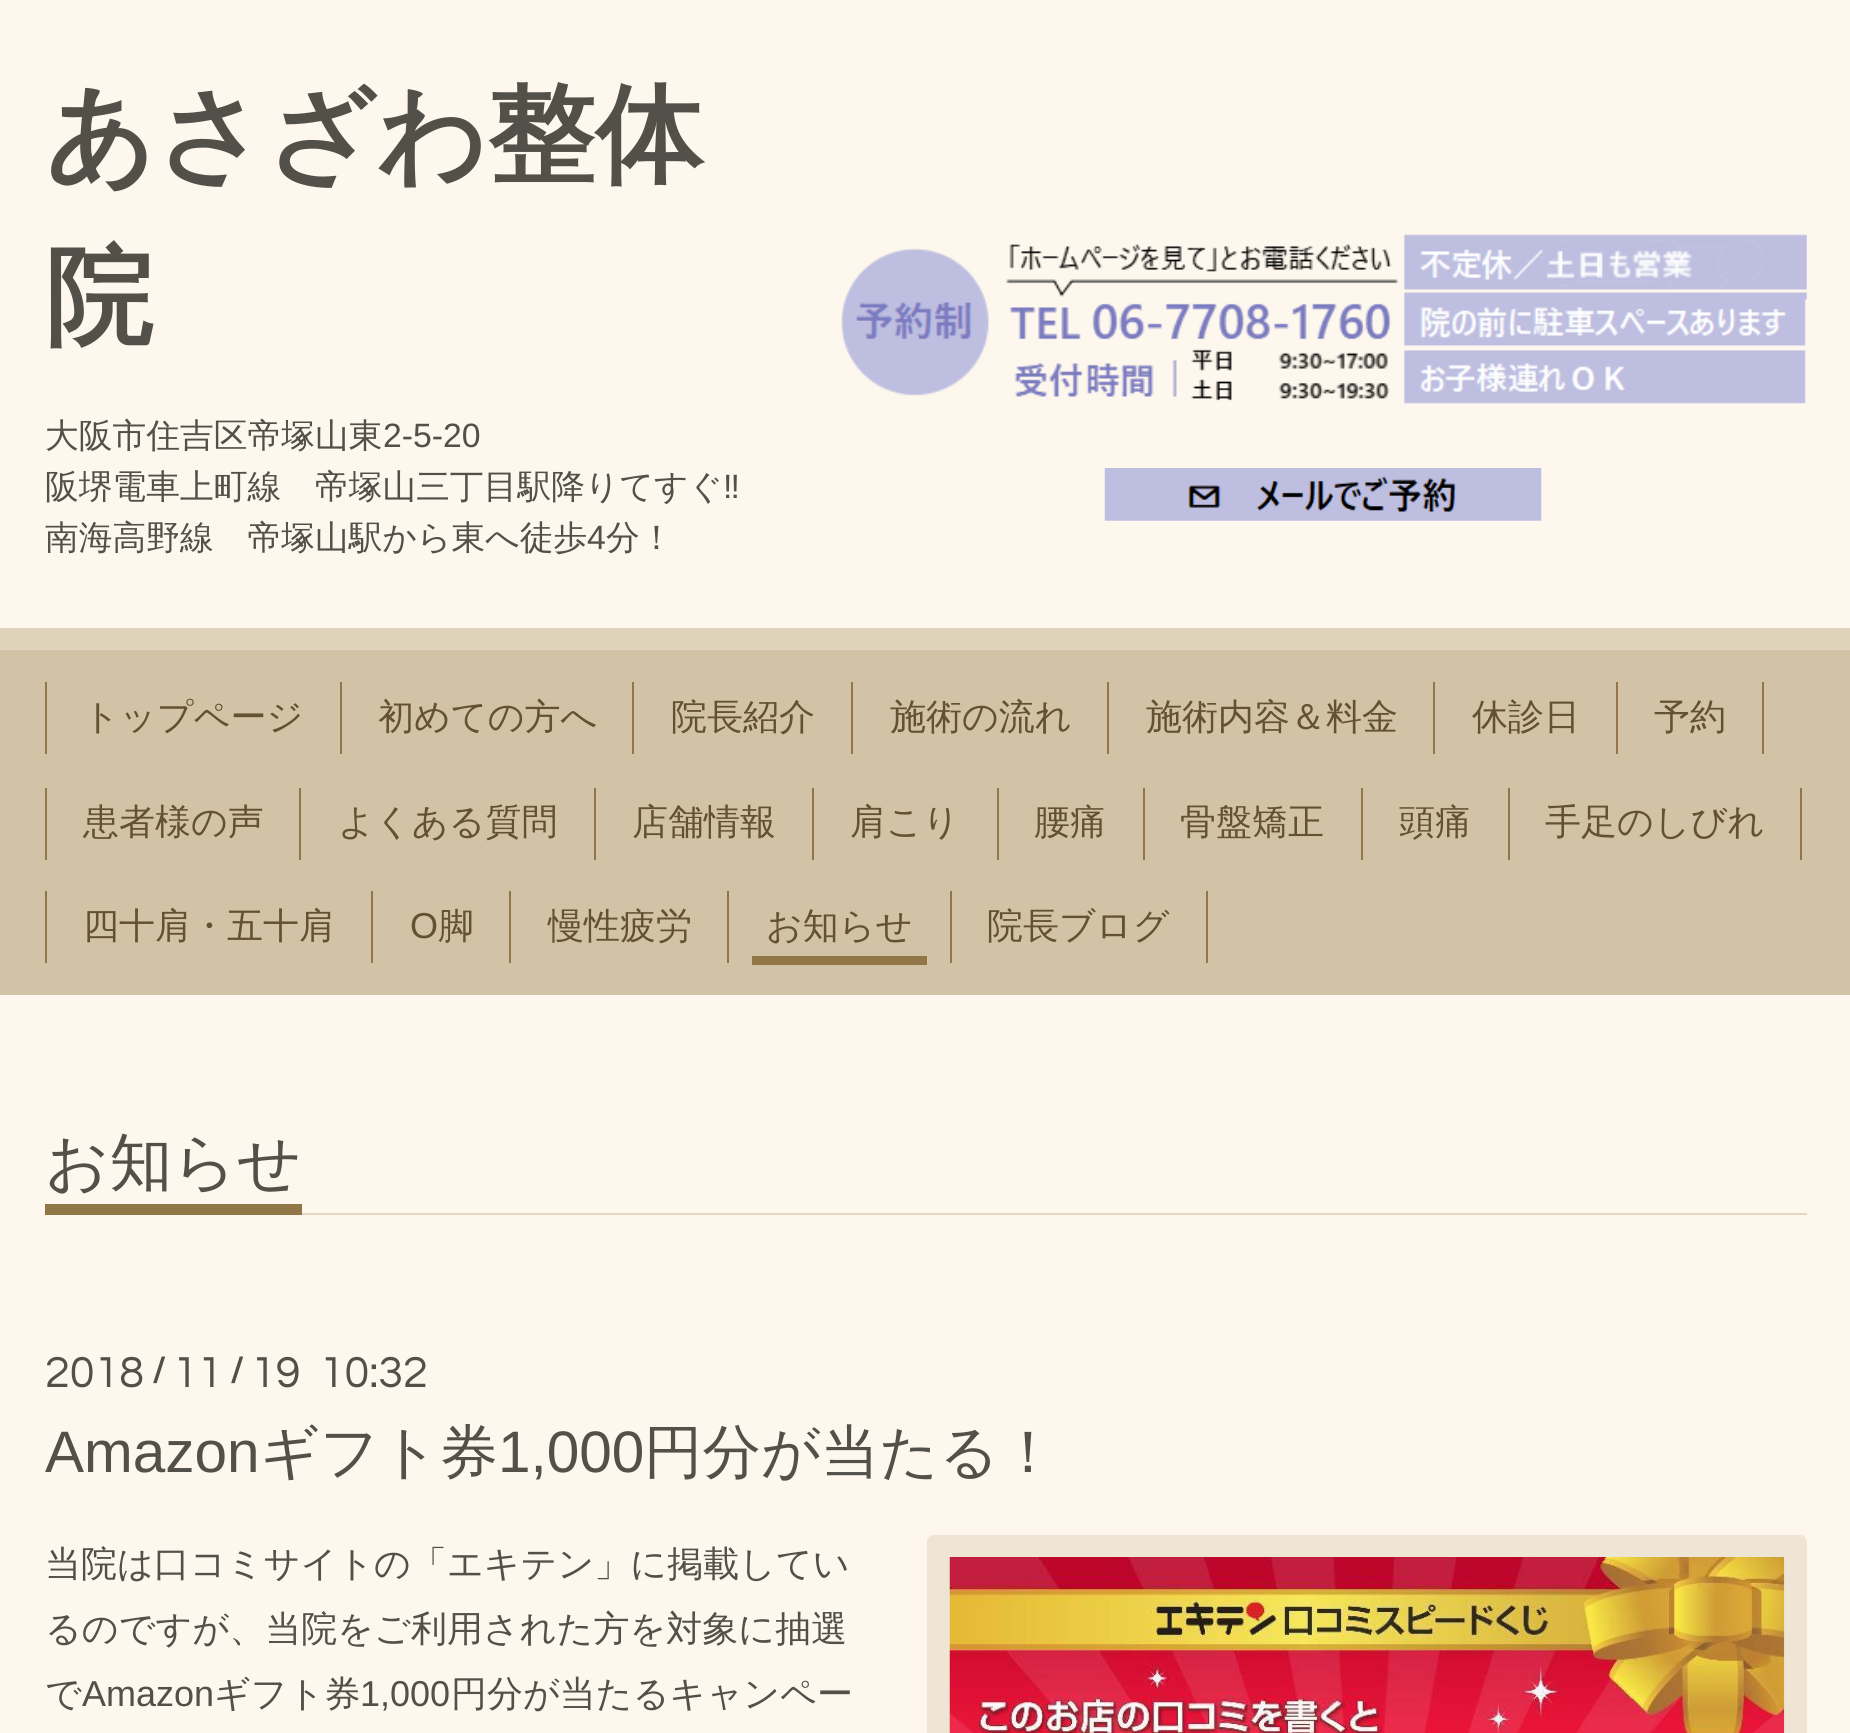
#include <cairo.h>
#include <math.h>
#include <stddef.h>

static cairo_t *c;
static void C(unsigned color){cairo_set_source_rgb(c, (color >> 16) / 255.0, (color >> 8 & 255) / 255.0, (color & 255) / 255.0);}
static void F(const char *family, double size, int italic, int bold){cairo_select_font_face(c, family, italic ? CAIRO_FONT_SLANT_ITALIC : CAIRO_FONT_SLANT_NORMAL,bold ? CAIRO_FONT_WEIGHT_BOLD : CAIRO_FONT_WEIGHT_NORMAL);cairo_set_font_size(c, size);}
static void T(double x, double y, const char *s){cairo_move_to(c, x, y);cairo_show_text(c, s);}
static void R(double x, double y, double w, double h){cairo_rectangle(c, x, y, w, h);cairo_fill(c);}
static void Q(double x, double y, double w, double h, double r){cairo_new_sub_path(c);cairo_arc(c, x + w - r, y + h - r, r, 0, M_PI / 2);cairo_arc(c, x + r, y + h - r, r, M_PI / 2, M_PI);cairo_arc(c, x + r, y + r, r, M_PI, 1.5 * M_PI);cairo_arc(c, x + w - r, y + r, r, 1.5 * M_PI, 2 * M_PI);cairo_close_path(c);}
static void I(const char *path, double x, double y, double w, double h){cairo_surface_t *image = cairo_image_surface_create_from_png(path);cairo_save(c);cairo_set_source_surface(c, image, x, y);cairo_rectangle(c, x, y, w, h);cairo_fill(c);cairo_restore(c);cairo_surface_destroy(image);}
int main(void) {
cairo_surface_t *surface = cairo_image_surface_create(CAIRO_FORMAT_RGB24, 1850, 1733);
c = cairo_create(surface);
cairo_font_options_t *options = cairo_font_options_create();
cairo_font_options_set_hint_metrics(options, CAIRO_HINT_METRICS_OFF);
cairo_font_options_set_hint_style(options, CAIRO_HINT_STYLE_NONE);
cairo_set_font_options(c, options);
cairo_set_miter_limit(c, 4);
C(0xfdf7ed);
cairo_paint(c);
F("WenQuanYi Zen Hei",108,0,1);
C(0x53504a);
T(45,172,"あさざわ整体");
T(45,334,"院");
F("WenQuanYi Zen Hei Medium",33.75,0,0);
T(45,447,"大阪市住吉区帝塚山東");
F("Liberation Sans",33.75,0,0);
T(383,447,"2-5-20");
F("WenQuanYi Zen Hei Medium",33.75,0,0);
T(45,498,"阪堺電車上町線　帝塚山三丁目駅降りてすぐ");
F("Liberation Sans",33.75,0,0);
T(723,498,"‼");
F("WenQuanYi Zen Hei Medium",33.75,0,0);
T(45,549,"南海高野線　帝塚山駅から東へ徒歩");
F("Liberation Sans",33.75,0,0);
T(587,549,"4");
F("WenQuanYi Zen Hei Medium",33.75,0,0);
T(606,549,"分！");
I("1.png",841,234,966,170);
I("2.png",1104,468,438,53);
C(0xe0d3bb);
R(0,628,1850,22);
C(0xd3c3a6);
R(0,650,1850,345);
C(0x917748);
R(340,682,2,72);
R(45,682,2,72);
F("WenQuanYi Zen Hei Medium",36,0,0);
C(0x635131);
T(83,729,"トップページ");
C(0x917748);
R(632,682,2,72);
C(0x635131);
T(378,729,"初めての方へ");
C(0x917748);
R(851,682,2,72);
C(0x635131);
T(671,729,"院長紹介");
C(0x917748);
R(1107,682,2,72);
C(0x635131);
T(890,729,"施術の流れ");
C(0x917748);
R(1433,682,2,72);
C(0x635131);
T(1146,729,"施術内容＆料金");
C(0x917748);
R(1616,682,2,72);
C(0x635131);
T(1472,729,"休診日");
C(0x917748);
R(1762,682,2,72);
C(0x635131);
T(1654,729,"予約");
C(0x917748);
R(299,788,2,72);
R(45,788,2,72);
C(0x635131);
T(83,834,"患者様の声");
C(0x917748);
R(594,788,2,72);
C(0x635131);
T(338,834,"よくある質問");
C(0x917748);
R(812,788,2,72);
C(0x635131);
T(632,834,"店舗情報");
C(0x917748);
R(997,788,2,72);
C(0x635131);
T(850,834,"肩こり");
C(0x917748);
R(1143,788,2,72);
C(0x635131);
T(1034,834,"腰痛");
C(0x917748);
R(1361,788,2,72);
C(0x635131);
T(1180,834,"骨盤矯正");
C(0x917748);
R(1508,788,2,72);
C(0x635131);
T(1399,834,"頭痛");
C(0x917748);
R(1800,788,2,72);
C(0x635131);
T(1545,834,"手足のしびれ");
C(0x917748);
R(371,891,2,72);
R(45,891,2,72);
C(0x635131);
T(83,938,"四十肩・五十肩");
C(0x917748);
R(509,891,2,72);
F("Liberation Sans",36,0,0);
C(0x635131);
T(410,938,"O");
F("WenQuanYi Zen Hei Medium",36,0,0);
T(438,938,"脚");
C(0x917748);
R(727,891,2,72);
C(0x635131);
T(548,938,"慢性疲労");
C(0x917748);
R(950,891,2,72);
C(0x635131);
T(766,938,"お知らせ");
C(0x917748);
R(752,956,175,9);
R(1206,891,2,72);
C(0x635131);
T(987,938,"院長ブログ");
C(0xe4d8c2);
R(302,1213,1505,2);
C(0x917748);
R(45,1204,257,11);
F("WenQuanYi Zen Hei Medium",63,0,0);
C(0x53504a);
T(45,1184,"お知らせ");
F("Questrial",45,0,0);
T(45,1387,"2018");
F("Questrial",36,0,1);
T(152,1382,"/");
F("Questrial",45,0,0);
T(173,1387,"11");
F("Questrial",36,0,1);
T(230,1382,"/");
F("Questrial",45,0,0);
T(251,1387,"19  10:32");
F("Liberation Sans",58.5,0,0);
T(45,1472,"Amazon");
F("WenQuanYi Zen Hei Medium",58.5,0,0);
T(260,1472,"ギフト券");
F("Liberation Sans",58.5,0,0);
T(498,1472,"1,000");
F("WenQuanYi Zen Hei Medium",58.5,0,0);
T(644,1472,"円分が当たる！");
F("WenQuanYi Zen Hei Medium",36,0,0);
T(45,1576,"当院は口コミサイトの「エキテン」に掲載してい");
T(45,1641,"るのですが、当院をご利用された方を対象に抽選");
T(45,1706,"で");
F("Liberation Sans",36,0,0);
T(82,1706,"Amazon");
F("WenQuanYi Zen Hei Medium",36,0,0);
T(214,1706,"ギフト券");
F("Liberation Sans",36,0,0);
T(360,1706,"1,000");
F("WenQuanYi Zen Hei Medium",36,0,0);
T(451,1706,"円分が当たるキャンペー");
C(0xeee5d4);
Q(927,1535,880,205,7);
cairo_fill(c);
I("3.png",949,1557,836,176);
cairo_surface_write_to_png(surface, "o.png");
cairo_font_options_destroy(options);
cairo_destroy(c);
cairo_surface_destroy(surface);
return 0;
}
